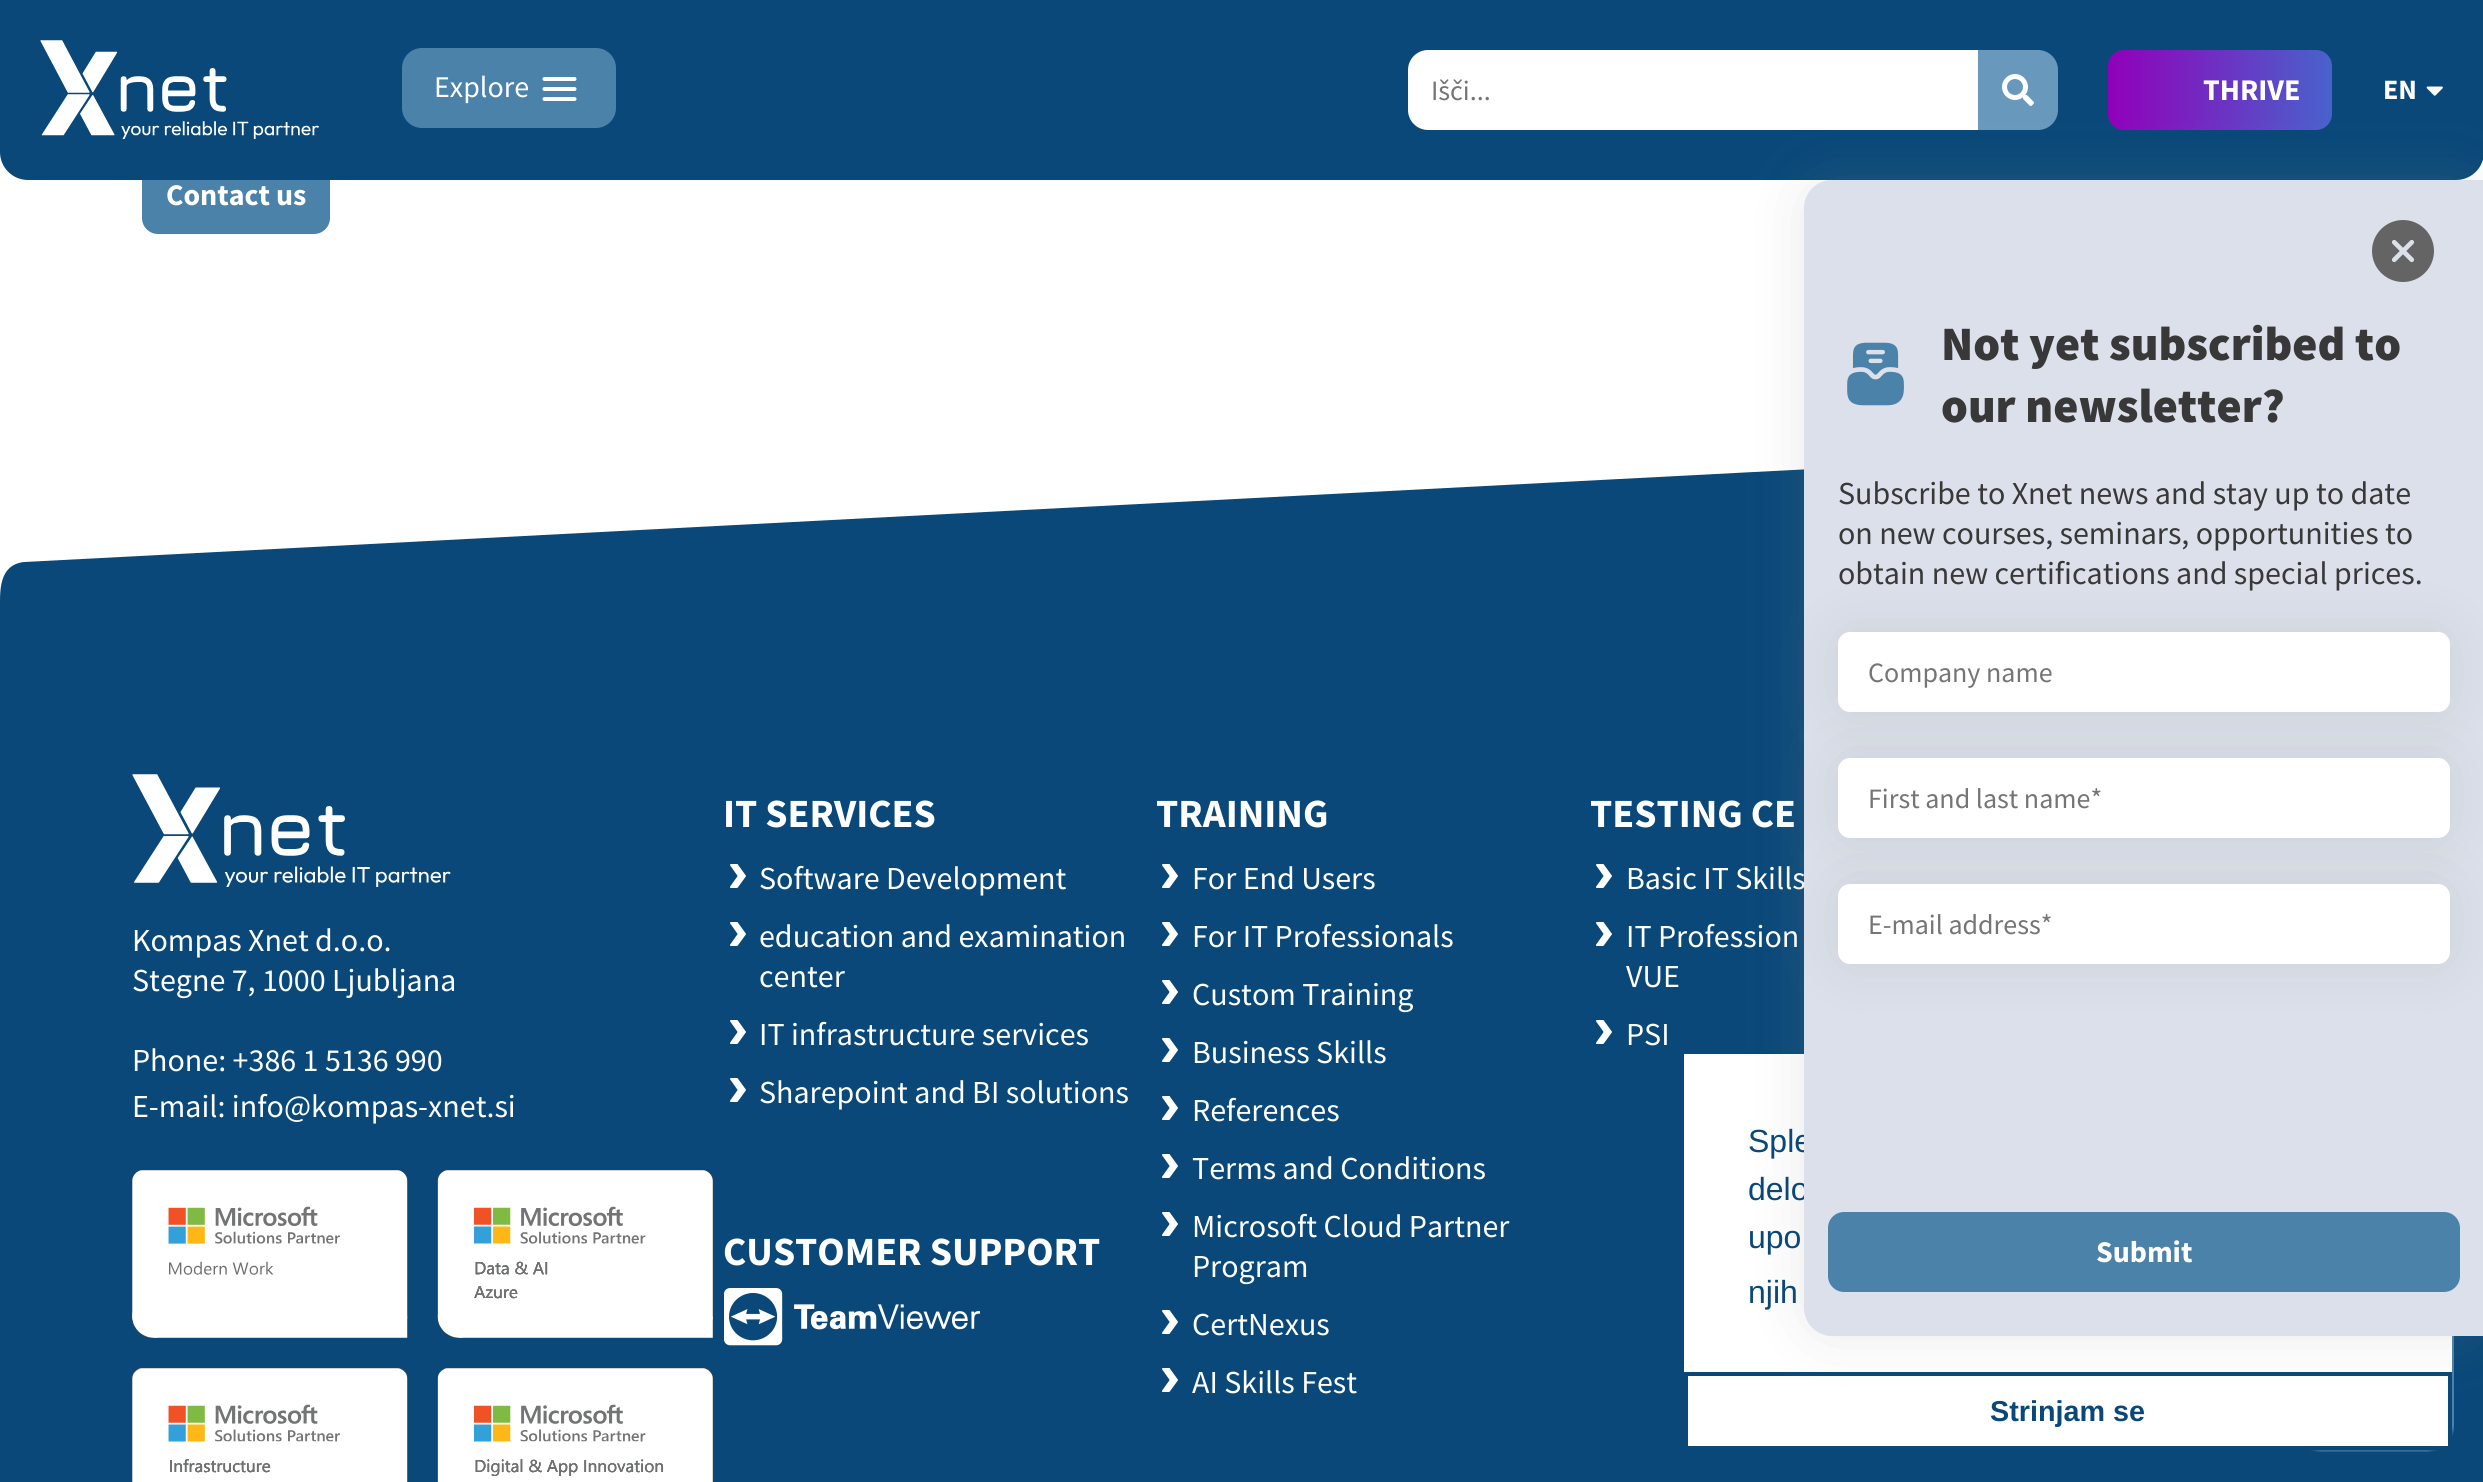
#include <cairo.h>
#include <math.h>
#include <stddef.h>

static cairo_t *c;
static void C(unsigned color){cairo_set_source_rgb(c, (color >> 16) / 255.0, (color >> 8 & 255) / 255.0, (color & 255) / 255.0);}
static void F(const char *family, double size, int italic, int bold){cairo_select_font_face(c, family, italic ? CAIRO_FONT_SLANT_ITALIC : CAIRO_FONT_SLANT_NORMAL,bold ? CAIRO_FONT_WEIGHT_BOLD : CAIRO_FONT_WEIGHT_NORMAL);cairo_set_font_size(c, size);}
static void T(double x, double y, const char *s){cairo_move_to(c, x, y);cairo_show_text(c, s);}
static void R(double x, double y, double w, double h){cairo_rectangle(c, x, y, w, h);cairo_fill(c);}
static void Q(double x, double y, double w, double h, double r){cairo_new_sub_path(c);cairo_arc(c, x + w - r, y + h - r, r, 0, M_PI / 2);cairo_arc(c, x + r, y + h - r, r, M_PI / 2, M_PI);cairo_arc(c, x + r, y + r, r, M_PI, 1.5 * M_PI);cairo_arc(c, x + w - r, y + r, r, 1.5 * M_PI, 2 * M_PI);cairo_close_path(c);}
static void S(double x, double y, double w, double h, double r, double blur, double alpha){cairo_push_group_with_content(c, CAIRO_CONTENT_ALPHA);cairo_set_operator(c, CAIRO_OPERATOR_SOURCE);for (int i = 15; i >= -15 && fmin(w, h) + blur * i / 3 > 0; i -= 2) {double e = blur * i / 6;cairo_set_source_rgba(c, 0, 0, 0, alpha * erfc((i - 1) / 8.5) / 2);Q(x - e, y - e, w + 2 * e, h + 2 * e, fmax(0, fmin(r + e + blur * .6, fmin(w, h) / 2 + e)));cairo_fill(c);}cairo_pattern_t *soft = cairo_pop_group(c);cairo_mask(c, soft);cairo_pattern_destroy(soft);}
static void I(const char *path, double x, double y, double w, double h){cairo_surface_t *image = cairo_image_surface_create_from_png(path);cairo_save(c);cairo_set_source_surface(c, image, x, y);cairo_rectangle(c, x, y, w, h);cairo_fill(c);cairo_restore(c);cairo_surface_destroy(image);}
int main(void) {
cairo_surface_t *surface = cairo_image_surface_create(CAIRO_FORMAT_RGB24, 2483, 1482);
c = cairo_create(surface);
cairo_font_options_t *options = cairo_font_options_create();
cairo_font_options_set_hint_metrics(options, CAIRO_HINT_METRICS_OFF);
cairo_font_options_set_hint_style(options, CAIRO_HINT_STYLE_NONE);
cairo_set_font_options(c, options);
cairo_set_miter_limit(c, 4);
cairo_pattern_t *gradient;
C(0xffffff);
cairo_paint(c);
C(0x4b82aa);
Q(142,154,188,80,16);
cairo_fill(c);
C(0x094879);
cairo_new_path(c);
cairo_move_to(c,0,0);
cairo_line_to(c,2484,0);
cairo_line_to(c,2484,152);
cairo_curve_to(c,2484,167.5,2471.5,180,2456,180);
cairo_line_to(c,28,180);
cairo_curve_to(c,12.5,180,0,167.5,0,152);
cairo_close_path(c);
cairo_fill(c);
I("1.png",40,40,279,99);
C(0x4b82aa);
Q(402,48,214,80,20);
cairo_fill(c);
F("Source Sans Pro",30,0,0);
C(0xffffff);
T(434,97,"Explore");
cairo_new_path(c);
cairo_move_to(c,544.5,79);
cairo_line_to(c,574.5,79);
cairo_move_to(c,544.5,89);
cairo_line_to(c,574.5,89);
cairo_move_to(c,544.5,99);
cairo_line_to(c,574.5,99);
cairo_set_line_width(c,4);
cairo_set_line_cap(c,CAIRO_LINE_CAP_ROUND);
cairo_set_line_join(c,CAIRO_LINE_JOIN_ROUND);
cairo_stroke(c);
cairo_new_path(c);
cairo_move_to(c,1428,50);
cairo_line_to(c,1978,50);
cairo_line_to(c,1978,130);
cairo_line_to(c,1428,130);
cairo_curve_to(c,1417,130,1408,121,1408,110);
cairo_line_to(c,1408,70);
cairo_curve_to(c,1408,59,1417,50,1428,50);
cairo_close_path(c);
cairo_fill(c);
F("Source Sans Pro",28,0,0);
C(0x757575);
T(1431,100,"Išči...");
C(0x6899bd);
cairo_new_path(c);
cairo_move_to(c,1978,50);
cairo_line_to(c,2038,50);
cairo_curve_to(c,2049,50,2058,59,2058,70);
cairo_line_to(c,2058,110);
cairo_curve_to(c,2058,121,2049,130,2038,130);
cairo_line_to(c,1978,130);
cairo_close_path(c);
cairo_fill(c);
I("2.png",2002,74,32,32);
gradient = cairo_pattern_create_linear(2108,90,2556,90);
cairo_pattern_add_color_stop_rgba(gradient,0,0.569,0,0.729,1);
cairo_pattern_add_color_stop_rgba(gradient,1,0,0.773,0.867,1);
cairo_set_source(c,gradient);
cairo_pattern_destroy(gradient);
Q(2108,50,224,80,16);
cairo_fill(c);
F("Source Sans Pro",30,0,1);
C(0xffffff);
T(2203,100,"THRIVE");
F("Source Sans Pro",28,0,1);
T(2383,99,"EN");
I("3.png",2426,86,17,10);
F("Source Sans Pro",30,0,1);
T(166,205,"Contact us");
C(0x094879);
cairo_new_path(c);
cairo_move_to(c,0,611);
cairo_curve_to(c,0,592,-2,565,24,562);
cairo_line_to(c,2446,436);
cairo_curve_to(c,2453,436,2460,435,2467,436);
cairo_curve_to(c,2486,442,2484,471,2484,486);
cairo_line_to(c,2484,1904);
cairo_line_to(c,0,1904);
cairo_close_path(c);
cairo_fill(c);
I("4.png",132,774,319,113);
F("Source Sans Pro",32,0,0);
C(0xffffff);
T(132,951,"Kompas Xnet d.o.o.");
T(132,991,"Stegne 7, 1000 Ljubljana");
T(132,1071,"Phone: +386 1 5136 990");
T(132,1117,"E-mail: info@kompas-xnet.si");
I("5.png",132,1170,581,312);
F("Source Sans Pro",40,0,1);
T(723,827,"IT SERVICES");
I("6.png",730,864,16,24);
F("Source Sans Pro",32,0,0);
T(759,889,"Software Development");
I("7.png",730,922,16,24);
T(759,947,"education and examination");
T(759,987,"center");
I("6.png",730,1020,16,24);
T(759,1045,"IT infrastructure services");
I("6.png",730,1078,16,24);
T(759,1103,"Sharepoint and BI solutions");
F("Source Sans Pro",40,0,1);
T(723,1265,"CUSTOMER SUPPORT");
I("8.png",724,1288,256,58);
T(1156,827,"TRAINING");
I("6.png",1162,864,16,24);
F("Source Sans Pro",32,0,0);
T(1192,889,"For End Users");
I("7.png",1162,922,16,24);
T(1192,947,"For IT Professionals");
I("6.png",1162,980,16,24);
T(1192,1005,"Custom Training");
I("6.png",1162,1038,16,24);
T(1192,1063,"Business Skills");
I("6.png",1162,1096,16,24);
T(1192,1121,"References");
I("6.png",1162,1154,16,24);
T(1192,1179,"Terms and Conditions");
I("6.png",1162,1212,16,24);
T(1192,1237,"Microsoft Cloud Partner");
T(1192,1277,"Program");
I("6.png",1162,1310,16,24);
T(1192,1335,"CertNexus");
I("6.png",1162,1368,16,24);
T(1192,1393,"AI Skills Fest");
F("Source Sans Pro",40,0,1);
T(1590,827,"TESTING CE");
I("6.png",1596,864,16,24);
F("Source Sans Pro",32,0,0);
T(1626,889,"Basic IT Skills");
I("7.png",1596,922,16,24);
T(1626,947,"IT Profession");
T(1626,987,"VUE");
I("6.png",1596,1020,16,24);
T(1626,1045,"PSI");
I("11.png",2309,1336,145,116);
R(1684,1054,768,392);
cairo_rectangle(c,1686,1374,764,74);
C(0x094879);
cairo_set_line_cap(c,CAIRO_LINE_CAP_BUTT);
cairo_set_line_join(c,CAIRO_LINE_JOIN_MITER);
cairo_stroke(c);
C(0x8e8e8e);
S(1804,180,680,1156,28,27,.2);
F("Liberation Sans",32,0,0);
C(0x094879);
T(1748,1152,"Sple");
T(1748,1200,"delo");
C(0xdbe0ea);
cairo_new_path(c);
cairo_move_to(c,1832,180);
cairo_line_to(c,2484,180);
cairo_line_to(c,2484,1336);
cairo_line_to(c,1832,1336);
cairo_curve_to(c,1816.5,1336,1804,1323.5,1804,1308);
cairo_line_to(c,1804,208);
cairo_curve_to(c,1804,192.5,1816.5,180,1832,180);
cairo_close_path(c);
cairo_fill(c);
I("9.png",2372,220,62,62);
I("10.png",1847,342,57,64);
F("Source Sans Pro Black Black",48,0,0);
C(0x383838);
T(1941,360,"Not yet subscribed to");
T(1941,422,"our newsletter?");
F("Source Sans Pro",32,0,0);
T(1838,504,"Subscribe to Xnet news and stay up to date");
T(1838,544,"on new courses, seminars, opportunities to");
T(1838,584,"obtain new certifications and special prices.");
C(0x8e8e8e);
S(1838,632,612,80,12,27,.2);
C(0xffffff);
Q(1838,632,612,80,12);
cairo_fill(c);
F("Source Sans Pro",28,0,0);
C(0x757575);
T(1868,682,"Company name");
C(0x8e8e8e);
S(1838,758,612,80,12,27,.2);
C(0xffffff);
Q(1838,758,612,80,12);
cairo_fill(c);
C(0x757575);
T(1868,808,"First and last name*");
C(0x8e8e8e);
S(1838,884,612,80,12,27,.2);
C(0xffffff);
Q(1838,884,612,80,12);
cairo_fill(c);
C(0x757575);
T(1868,934,"E-mail address*");
C(0x4b82aa);
Q(1828,1212,632,80,16);
cairo_fill(c);
F("Source Sans Pro",30,0,1);
C(0xffffff);
T(2096,1262,"Submit");
F("Liberation Sans",32,0,0);
C(0x094879);
T(1748,1248,"upo");
T(1748,1303,"njih");
F("Liberation Sans",28.75,0,1);
T(1990,1421,"Strinjam se");
cairo_surface_write_to_png(surface, "o.png");
cairo_font_options_destroy(options);
cairo_destroy(c);
cairo_surface_destroy(surface);
return 0;
}
